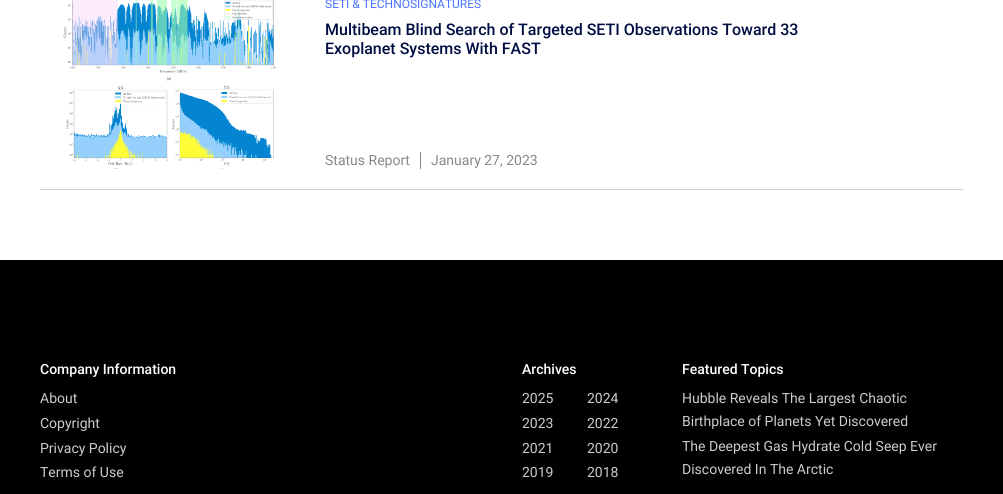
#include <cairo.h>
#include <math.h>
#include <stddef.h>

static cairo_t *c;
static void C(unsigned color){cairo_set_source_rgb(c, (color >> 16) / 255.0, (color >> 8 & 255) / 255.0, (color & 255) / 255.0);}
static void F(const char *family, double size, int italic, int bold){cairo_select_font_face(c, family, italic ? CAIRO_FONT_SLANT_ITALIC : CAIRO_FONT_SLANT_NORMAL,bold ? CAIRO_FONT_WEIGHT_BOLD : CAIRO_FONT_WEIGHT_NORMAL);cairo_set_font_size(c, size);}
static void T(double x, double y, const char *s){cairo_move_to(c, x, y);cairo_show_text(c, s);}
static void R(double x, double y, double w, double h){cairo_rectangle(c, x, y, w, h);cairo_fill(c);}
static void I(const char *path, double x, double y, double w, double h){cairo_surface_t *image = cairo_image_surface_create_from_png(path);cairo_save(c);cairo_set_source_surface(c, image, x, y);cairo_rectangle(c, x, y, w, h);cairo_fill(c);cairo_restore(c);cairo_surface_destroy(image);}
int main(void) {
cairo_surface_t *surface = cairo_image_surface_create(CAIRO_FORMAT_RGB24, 1003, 494);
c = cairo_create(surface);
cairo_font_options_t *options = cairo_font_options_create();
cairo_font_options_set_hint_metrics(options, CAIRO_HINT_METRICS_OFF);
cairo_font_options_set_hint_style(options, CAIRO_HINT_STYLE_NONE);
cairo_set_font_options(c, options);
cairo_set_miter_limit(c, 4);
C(0xffffff);
cairo_paint(c);
C(0xcccccc);
R(40,189,923,1);
I("1.png",63,0,213,169);
F("Roboto",12,0,0);
C(0x4874ff);
T(325,8,"SETI & TECHNOSIGNATURES");
F("Roboto Medium",16,0,0);
C(0x000d42);
T(325,35,"Multibeam Blind Search of Targeted SETI Observations Toward 33");
T(325,54,"Exoplanet Systems With FAST");
F("Roboto",14,0,0);
C(0x888888);
T(325,165,"Status Report");
R(420,152,1,17);
T(431,165,"January 27, 2023");
C(0x000000);
R(0,260,1003,234);
F("Roboto Medium",14,0,0);
C(0xffffff);
T(40,374,"Company Information");
F("Roboto",14,0,0);
C(0xcccccc);
T(40,403,"About");
T(40,428,"Copyright");
T(40,453,"Privacy Policy");
T(40,477,"Terms of Use");
F("Roboto Medium",14,0,0);
C(0xffffff);
T(522,374,"Archives");
F("Roboto",14,0,0);
C(0xcccccc);
T(522,403,"2025");
T(587,403,"2024");
T(522,428,"2023");
T(587,428,"2022");
T(522,453,"2021");
T(587,453,"2020");
T(522,477,"2019");
T(587,477,"2018");
F("Roboto Medium",14,0,0);
C(0xffffff);
T(682,374,"Featured Topics");
F("Roboto",14,0,0);
C(0xcccccc);
T(682,403,"Hubble Reveals The Largest Chaotic");
T(682,426,"Birthplace of Planets Yet Discovered");
T(682,451,"The Deepest Gas Hydrate Cold Seep Ever");
T(682,474,"Discovered In The Arctic");
cairo_surface_write_to_png(surface, "o.png");
cairo_font_options_destroy(options);
cairo_destroy(c);
cairo_surface_destroy(surface);
return 0;
}
